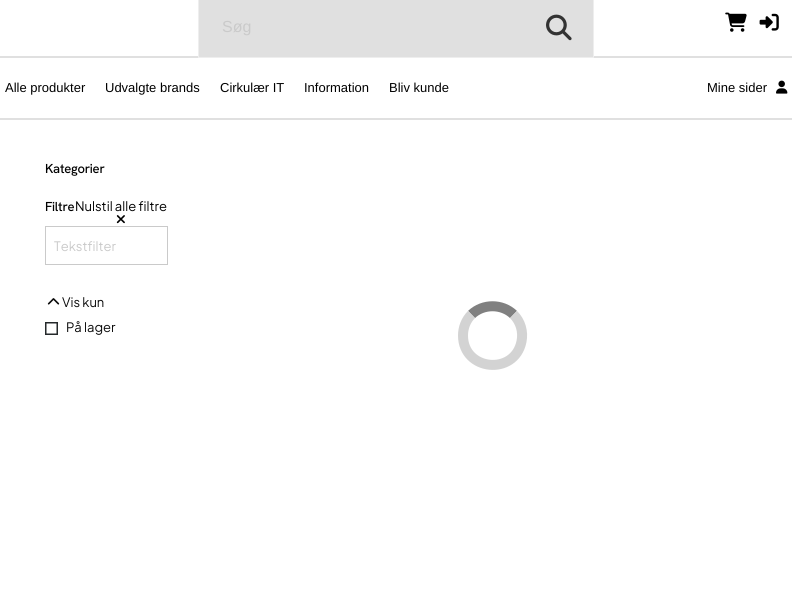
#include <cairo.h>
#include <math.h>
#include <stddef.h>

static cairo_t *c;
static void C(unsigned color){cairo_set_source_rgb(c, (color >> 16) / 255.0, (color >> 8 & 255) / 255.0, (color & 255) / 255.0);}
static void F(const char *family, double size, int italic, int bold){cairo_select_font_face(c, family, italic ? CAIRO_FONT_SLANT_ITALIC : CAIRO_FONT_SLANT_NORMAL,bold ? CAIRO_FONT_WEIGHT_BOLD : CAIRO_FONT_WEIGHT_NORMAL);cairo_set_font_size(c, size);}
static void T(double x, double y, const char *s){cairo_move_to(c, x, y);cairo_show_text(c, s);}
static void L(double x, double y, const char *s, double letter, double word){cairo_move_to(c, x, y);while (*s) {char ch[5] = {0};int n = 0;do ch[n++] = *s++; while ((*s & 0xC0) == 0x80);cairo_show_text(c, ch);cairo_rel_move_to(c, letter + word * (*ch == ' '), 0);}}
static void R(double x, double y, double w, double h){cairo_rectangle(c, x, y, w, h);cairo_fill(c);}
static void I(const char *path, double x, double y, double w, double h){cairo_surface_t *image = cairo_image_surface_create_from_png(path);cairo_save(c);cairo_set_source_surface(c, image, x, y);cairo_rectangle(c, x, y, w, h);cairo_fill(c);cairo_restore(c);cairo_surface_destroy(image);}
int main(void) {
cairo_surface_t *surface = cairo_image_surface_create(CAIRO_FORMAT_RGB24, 792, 594);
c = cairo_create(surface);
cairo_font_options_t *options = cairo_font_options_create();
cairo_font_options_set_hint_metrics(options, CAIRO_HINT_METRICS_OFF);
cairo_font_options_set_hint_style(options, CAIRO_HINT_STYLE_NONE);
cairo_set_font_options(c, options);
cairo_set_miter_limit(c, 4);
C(0xffffff);
cairo_paint(c);
C(0xe0e0e0);
R(199,0,394,56);
R(0,56,792,2);
cairo_rectangle(c,198.5,-.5,395,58);
C(0xeeeeee);
cairo_set_line_width(c,1);
cairo_stroke(c);
F("Liberation Sans",16,0,0);
C(0xcacaca);
T(222,32,"Søg");
I("1.png",546,14,26,27);
I("2.png",725,12,22,20);
I("3.png",759,13,20,18);
C(0xe0e0e0);
R(0,118,792,2);
F("Liberation Sans",13,0,0);
C(0x000000);
T(5,92,"Alle produkter");
T(105,92,"Udvalgte brands");
T(220,92,"Cirkulær IT");
T(304,92,"Information");
T(389,92,"Bliv kunde");
T(707,92,"Mine sider");
I("4.png",776,80,12,14);
F("Hanken Grotesk Medium",13,0,0);
L(45,173,"Kategorier",-.25,0);
L(45,211,"Filtre",-.25,0);
F("Plus Jakarta Sans",13,0,0);
T(75,211,"Nulstil alle filtre");
I("5.png",116,215,9,9);
cairo_rectangle(c,45.5,226.5,122,38);
C(0xcacaca);
cairo_stroke(c);
T(54,251,"Tekstfilter");
I("6.png",47,298,13,7);
C(0x0a0a0a);
T(62,307,"Vis kun");
I("7.png",45,322,13,13);
T(66,332,"På lager");
cairo_new_path(c);
cairo_move_to(c,471.5,314.5);
cairo_curve_to(c,483,303.5,502,303.5,513.5,314.5);
C(0x808080);
cairo_set_line_width(c,10);
cairo_stroke(c);
cairo_new_path(c);
cairo_move_to(c,513.5,314.5);
cairo_curve_to(c,520.5,321.5,523.5,331.5,521.5,341.5);
cairo_curve_to(c,514.5,376,463,371,463,335.5);
cairo_curve_to(c,463,327.5,466,320,471.5,314.5);
C(0xd3d3d3);
cairo_stroke(c);
cairo_surface_write_to_png(surface, "o.png");
cairo_font_options_destroy(options);
cairo_destroy(c);
cairo_surface_destroy(surface);
return 0;
}
